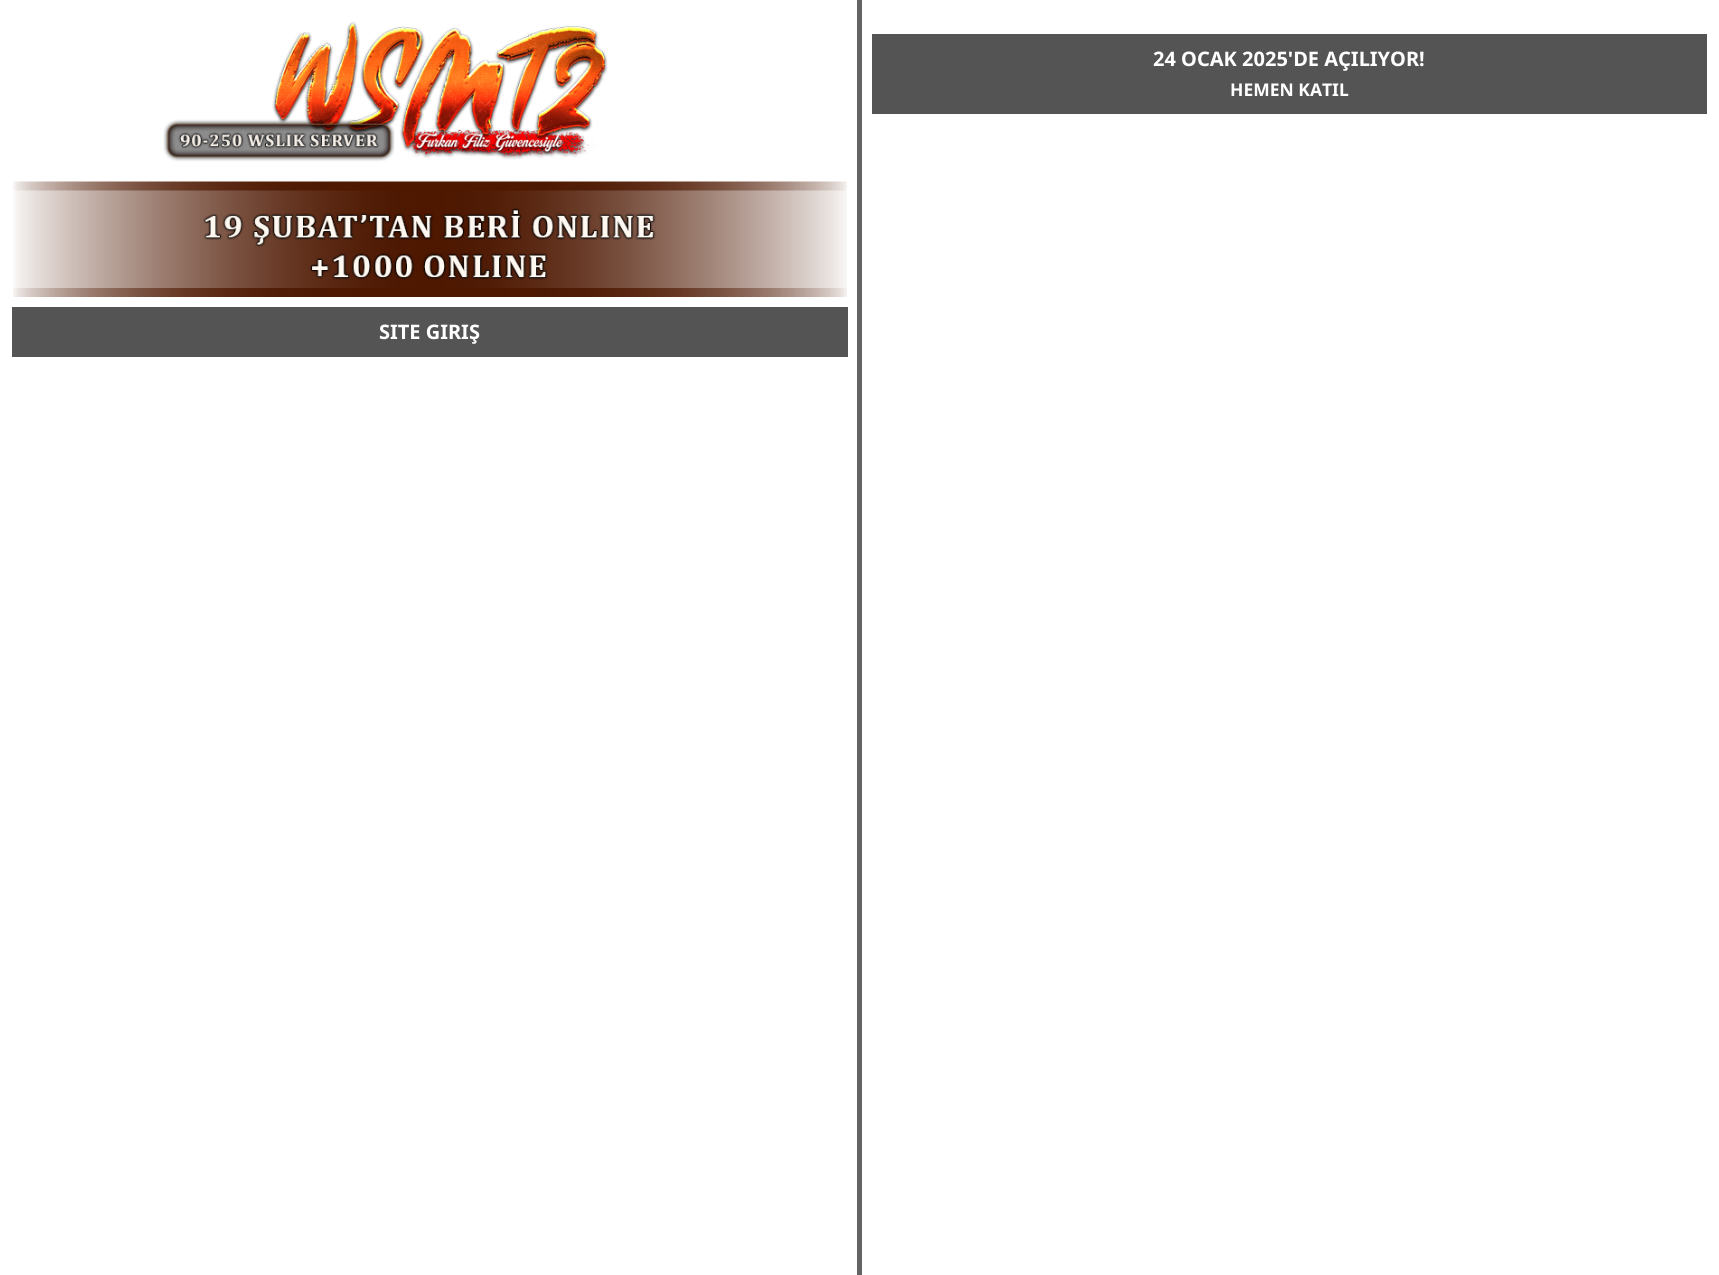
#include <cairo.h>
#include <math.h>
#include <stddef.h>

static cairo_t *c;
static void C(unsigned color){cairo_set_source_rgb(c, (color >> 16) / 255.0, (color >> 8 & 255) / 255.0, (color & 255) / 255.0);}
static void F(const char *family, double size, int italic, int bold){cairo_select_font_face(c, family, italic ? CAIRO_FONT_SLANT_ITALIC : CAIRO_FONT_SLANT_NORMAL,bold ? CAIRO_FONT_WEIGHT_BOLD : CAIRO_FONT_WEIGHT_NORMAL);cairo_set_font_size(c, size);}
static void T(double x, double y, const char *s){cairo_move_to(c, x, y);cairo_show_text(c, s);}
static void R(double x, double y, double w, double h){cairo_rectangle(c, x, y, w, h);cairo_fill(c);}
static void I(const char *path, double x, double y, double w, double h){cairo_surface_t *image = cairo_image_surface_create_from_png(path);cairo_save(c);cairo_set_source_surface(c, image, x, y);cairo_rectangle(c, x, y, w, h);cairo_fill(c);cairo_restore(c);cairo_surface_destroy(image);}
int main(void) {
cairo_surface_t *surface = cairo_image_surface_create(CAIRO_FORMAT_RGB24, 1719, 1275);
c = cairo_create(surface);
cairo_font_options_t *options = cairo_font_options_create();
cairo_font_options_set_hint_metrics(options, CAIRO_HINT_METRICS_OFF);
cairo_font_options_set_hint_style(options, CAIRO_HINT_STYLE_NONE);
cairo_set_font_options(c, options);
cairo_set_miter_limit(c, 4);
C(0xffffff);
cairo_paint(c);
C(0x636363);
R(857,0,5,1275);
C(0x545454);
R(872,34,835,80);
F("Noto Sans",20,0,1);
C(0xffffff);
T(1153,66,"24 OCAK 2025'DE AÇILIYOR!");
F("Noto Sans",17.5,0,1);
T(1230,96,"HEMEN KATIL");
I("1.png",13,21,834,276);
C(0x545454);
R(12,307,836,50);
F("Noto Sans",20,0,1);
C(0xffffff);
T(379,339,"SITE GIRIŞ");
cairo_surface_write_to_png(surface, "o.png");
cairo_font_options_destroy(options);
cairo_destroy(c);
cairo_surface_destroy(surface);
return 0;
}
